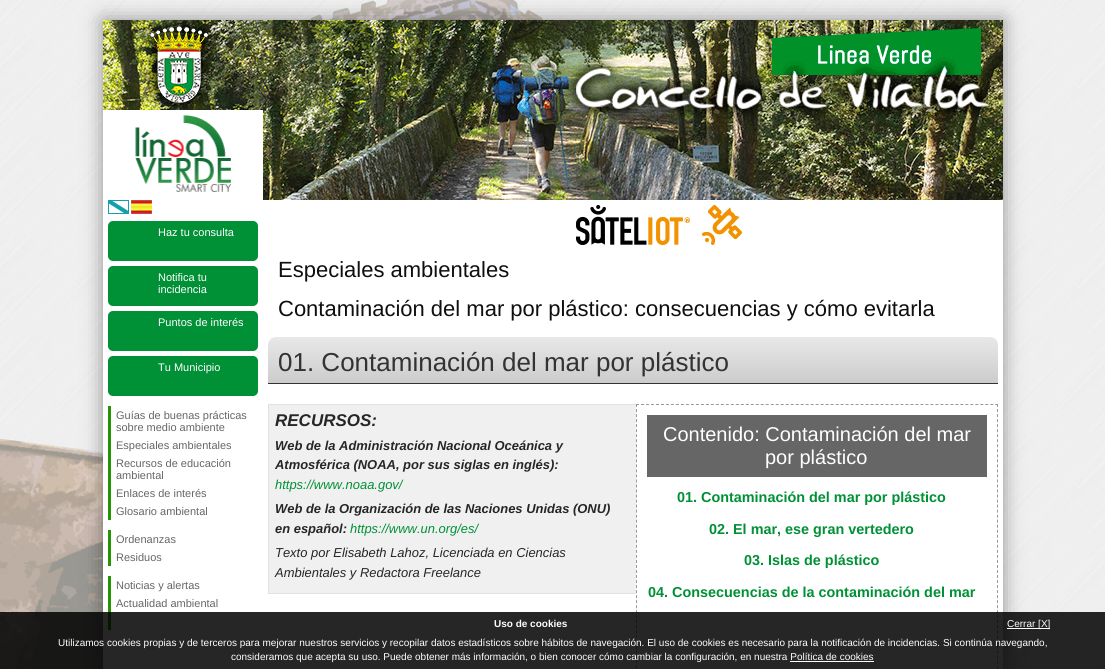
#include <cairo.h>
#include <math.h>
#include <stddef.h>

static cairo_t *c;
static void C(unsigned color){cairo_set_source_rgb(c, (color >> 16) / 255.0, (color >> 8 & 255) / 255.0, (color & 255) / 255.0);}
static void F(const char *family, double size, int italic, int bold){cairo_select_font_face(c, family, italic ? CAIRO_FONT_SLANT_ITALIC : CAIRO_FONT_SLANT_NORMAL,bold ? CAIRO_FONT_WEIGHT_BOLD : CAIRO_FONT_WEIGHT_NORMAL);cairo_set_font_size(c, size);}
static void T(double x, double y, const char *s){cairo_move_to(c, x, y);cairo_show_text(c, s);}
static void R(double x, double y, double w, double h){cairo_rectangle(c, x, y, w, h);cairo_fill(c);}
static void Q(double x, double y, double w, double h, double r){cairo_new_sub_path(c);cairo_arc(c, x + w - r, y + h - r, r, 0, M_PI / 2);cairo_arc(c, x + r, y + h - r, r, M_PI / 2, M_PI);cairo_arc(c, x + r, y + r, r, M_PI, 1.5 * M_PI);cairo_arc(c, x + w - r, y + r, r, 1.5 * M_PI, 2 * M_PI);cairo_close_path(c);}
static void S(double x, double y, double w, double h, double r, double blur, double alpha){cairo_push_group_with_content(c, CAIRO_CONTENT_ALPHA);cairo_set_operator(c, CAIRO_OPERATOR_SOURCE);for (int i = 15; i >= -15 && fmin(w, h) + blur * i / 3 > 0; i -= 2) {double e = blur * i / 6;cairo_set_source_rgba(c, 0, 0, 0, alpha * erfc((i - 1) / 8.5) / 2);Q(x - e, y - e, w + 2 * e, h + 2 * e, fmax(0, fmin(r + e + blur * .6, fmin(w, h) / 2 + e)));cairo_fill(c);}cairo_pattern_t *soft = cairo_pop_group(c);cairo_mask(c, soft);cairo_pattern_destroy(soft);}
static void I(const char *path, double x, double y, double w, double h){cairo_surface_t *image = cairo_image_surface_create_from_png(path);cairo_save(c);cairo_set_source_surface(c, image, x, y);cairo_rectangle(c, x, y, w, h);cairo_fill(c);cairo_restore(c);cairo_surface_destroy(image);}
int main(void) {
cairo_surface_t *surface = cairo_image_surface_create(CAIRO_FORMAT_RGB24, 1105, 669);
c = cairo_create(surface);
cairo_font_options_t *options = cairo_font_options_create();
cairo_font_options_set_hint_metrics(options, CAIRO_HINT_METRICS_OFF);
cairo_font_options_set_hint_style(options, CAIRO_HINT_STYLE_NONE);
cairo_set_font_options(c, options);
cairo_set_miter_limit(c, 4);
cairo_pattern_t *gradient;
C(0xffffff);
cairo_paint(c);
I("1.png",0,0,1105,669);
C(0x000000);
S(103,20,900,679,0,10,.4);
C(0xffffff);
R(103,110,900,559);
I("2.png",103,20,900,90);
I("3.png",135,115,97,77);
I("4.png",263,110,740,90);
I("5.png",576,205,166,40);
I("6.png",108,200,21,14);
I("7.png",131,200,21,14);
C(0x009036);
Q(108,221,150,40,5);
cairo_fill(c);
F("Liberation Sans",11,0,0);
C(0xffffff);
T(158,236,"Haz tu consulta");
C(0x009036);
Q(108,266,150,40,5);
cairo_fill(c);
C(0xffffff);
T(158,281,"Notifica tu");
T(158,293,"incidencia");
C(0x009036);
Q(108,311,150,40,5);
cairo_fill(c);
C(0xffffff);
T(158,326,"Puntos de interés");
C(0x009036);
Q(108,356,150,40,5);
cairo_fill(c);
C(0xffffff);
T(158,371,"Tu Municipio");
C(0x259603);
R(108,406,3,114);
C(0x666666);
T(116,419,"Guías de buenas prácticas");
T(116,431,"sobre medio ambiente");
T(116,449,"Especiales ambientales");
T(116,467,"Recursos de educación");
T(116,479,"ambiental");
T(116,497,"Enlaces de interés");
T(116,515,"Glosario ambiental");
C(0x259603);
R(108,530,3,36);
C(0x666666);
T(116,543,"Ordenanzas");
T(116,561,"Residuos");
C(0x259603);
R(108,576,3,54);
C(0x666666);
T(116,589,"Noticias y alertas");
T(116,607,"Actualidad ambiental");
F("Liberation Sans",22,0,0);
C(0x0f0f0f);
T(278,277,"Especiales ambientales");
T(278,316,"Contaminación del mar por plástico: consecuencias y cómo evitarla");
gradient = cairo_pattern_create_linear(633,337,633,383);
cairo_pattern_add_color_stop_rgba(gradient,0,0.91,0.91,0.91,1);
cairo_pattern_add_color_stop_rgba(gradient,1,0.8,0.8,0.8,1);
cairo_set_source(c,gradient);
cairo_pattern_destroy(gradient);
cairo_new_path(c);
cairo_move_to(c,276,337);
cairo_line_to(c,990,337);
cairo_curve_to(c,994.5,337,998,340.5,998,345);
cairo_line_to(c,998,383);
cairo_line_to(c,268,383);
cairo_line_to(c,268,345);
cairo_curve_to(c,268,340.5,271.5,337,276,337);
cairo_close_path(c);
cairo_fill(c);
C(0x333333);
R(268,383,730,1);
F("Liberation Sans",26,0,0);
T(278,371,"01. Contaminación del mar por plástico");
C(0xf0f0f0);
R(269,405,367,188);
cairo_rectangle(c,268.5,404.5,729,189);
C(0xe2e2e2);
cairo_set_line_width(c,1);
cairo_stroke(c);
F("Liberation Sans",17,1,1);
C(0x262626);
T(275,426,"RECURSOS:");
F("Liberation Sans",12.95,1,1);
T(275,450,"Web de la Administración Nacional Oceánica y");
T(275,469,"Atmosférica (NOAA, por sus siglas en inglés):");
F("Liberation Sans",12.95,1,0);
C(0x009036);
T(275,489,"https://www.noaa.gov/");
F("Liberation Sans",12.95,1,1);
C(0x262626);
T(275,513,"Web de la Organización de las Naciones Unidas (ONU)");
T(275,533,"en español:");
F("Liberation Sans",12.95,1,0);
C(0x009036);
T(350,533,"https://www.un.org/es/");
C(0x262626);
T(275,557,"Texto por Elisabeth Lahoz, Licenciada en Ciencias");
T(275,577,"Ambientales y Redactora Freelance");
C(0xffffff);
R(636,404,362,190);
cairo_new_path(c);
cairo_move_to(c,636,404.5);
cairo_line_to(c,998,404.5);
C(0x999999);
cairo_set_dash(c,(double[]){3,1.99},2,0);
cairo_stroke(c);
cairo_new_path(c);
cairo_move_to(c,997.5,404);
cairo_line_to(c,997.5,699);
cairo_set_dash(c,(double[]){3,2.03},2,0);
cairo_stroke(c);
cairo_new_path(c);
cairo_move_to(c,636.5,404);
cairo_line_to(c,636.5,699);
cairo_stroke(c);
C(0x666666);
R(647,415,340,62);
F("Liberation Sans",20,0,0);
C(0xffffff);
T(663,441,"Contenido: Contaminación del mar");
T(765,464,"por plástico");
F("Liberation Sans",14.4,0,1);
C(0x009036);
T(677,502,"01. Contaminación del mar por plástico");
T(709,534,"02. El mar, ese gran vertedero");
T(744,565,"03. Islas de plástico");
T(648,597,"04. Consecuencias de la contaminación del mar");
cairo_set_source_rgba(c,0,0,0,0.85);
R(0,612,1105,57);
F("Liberation Sans",10,0,1);
C(0xffffff);
T(494,627,"Uso de cookies");
R(1007,628,43,1);
F("Liberation Sans",10,0,0);
T(1007,627,"Cerrar [X]");
T(58,646,"Utilizamos cookies propias y de terceros para mejorar nuestros servicios y recopilar datos estadísticos sobre hábitos de navegación. El uso de cookies es necesario para la notificación de incidencias. Si continúa navegando,");
T(231,660,"consideramos que acepta su uso. Puede obtener más información, o bien conocer cómo cambiar la configuración, en nuestra Política de cookies");
R(790,661,84,1);
cairo_surface_write_to_png(surface, "o.png");
cairo_font_options_destroy(options);
cairo_destroy(c);
cairo_surface_destroy(surface);
return 0;
}
